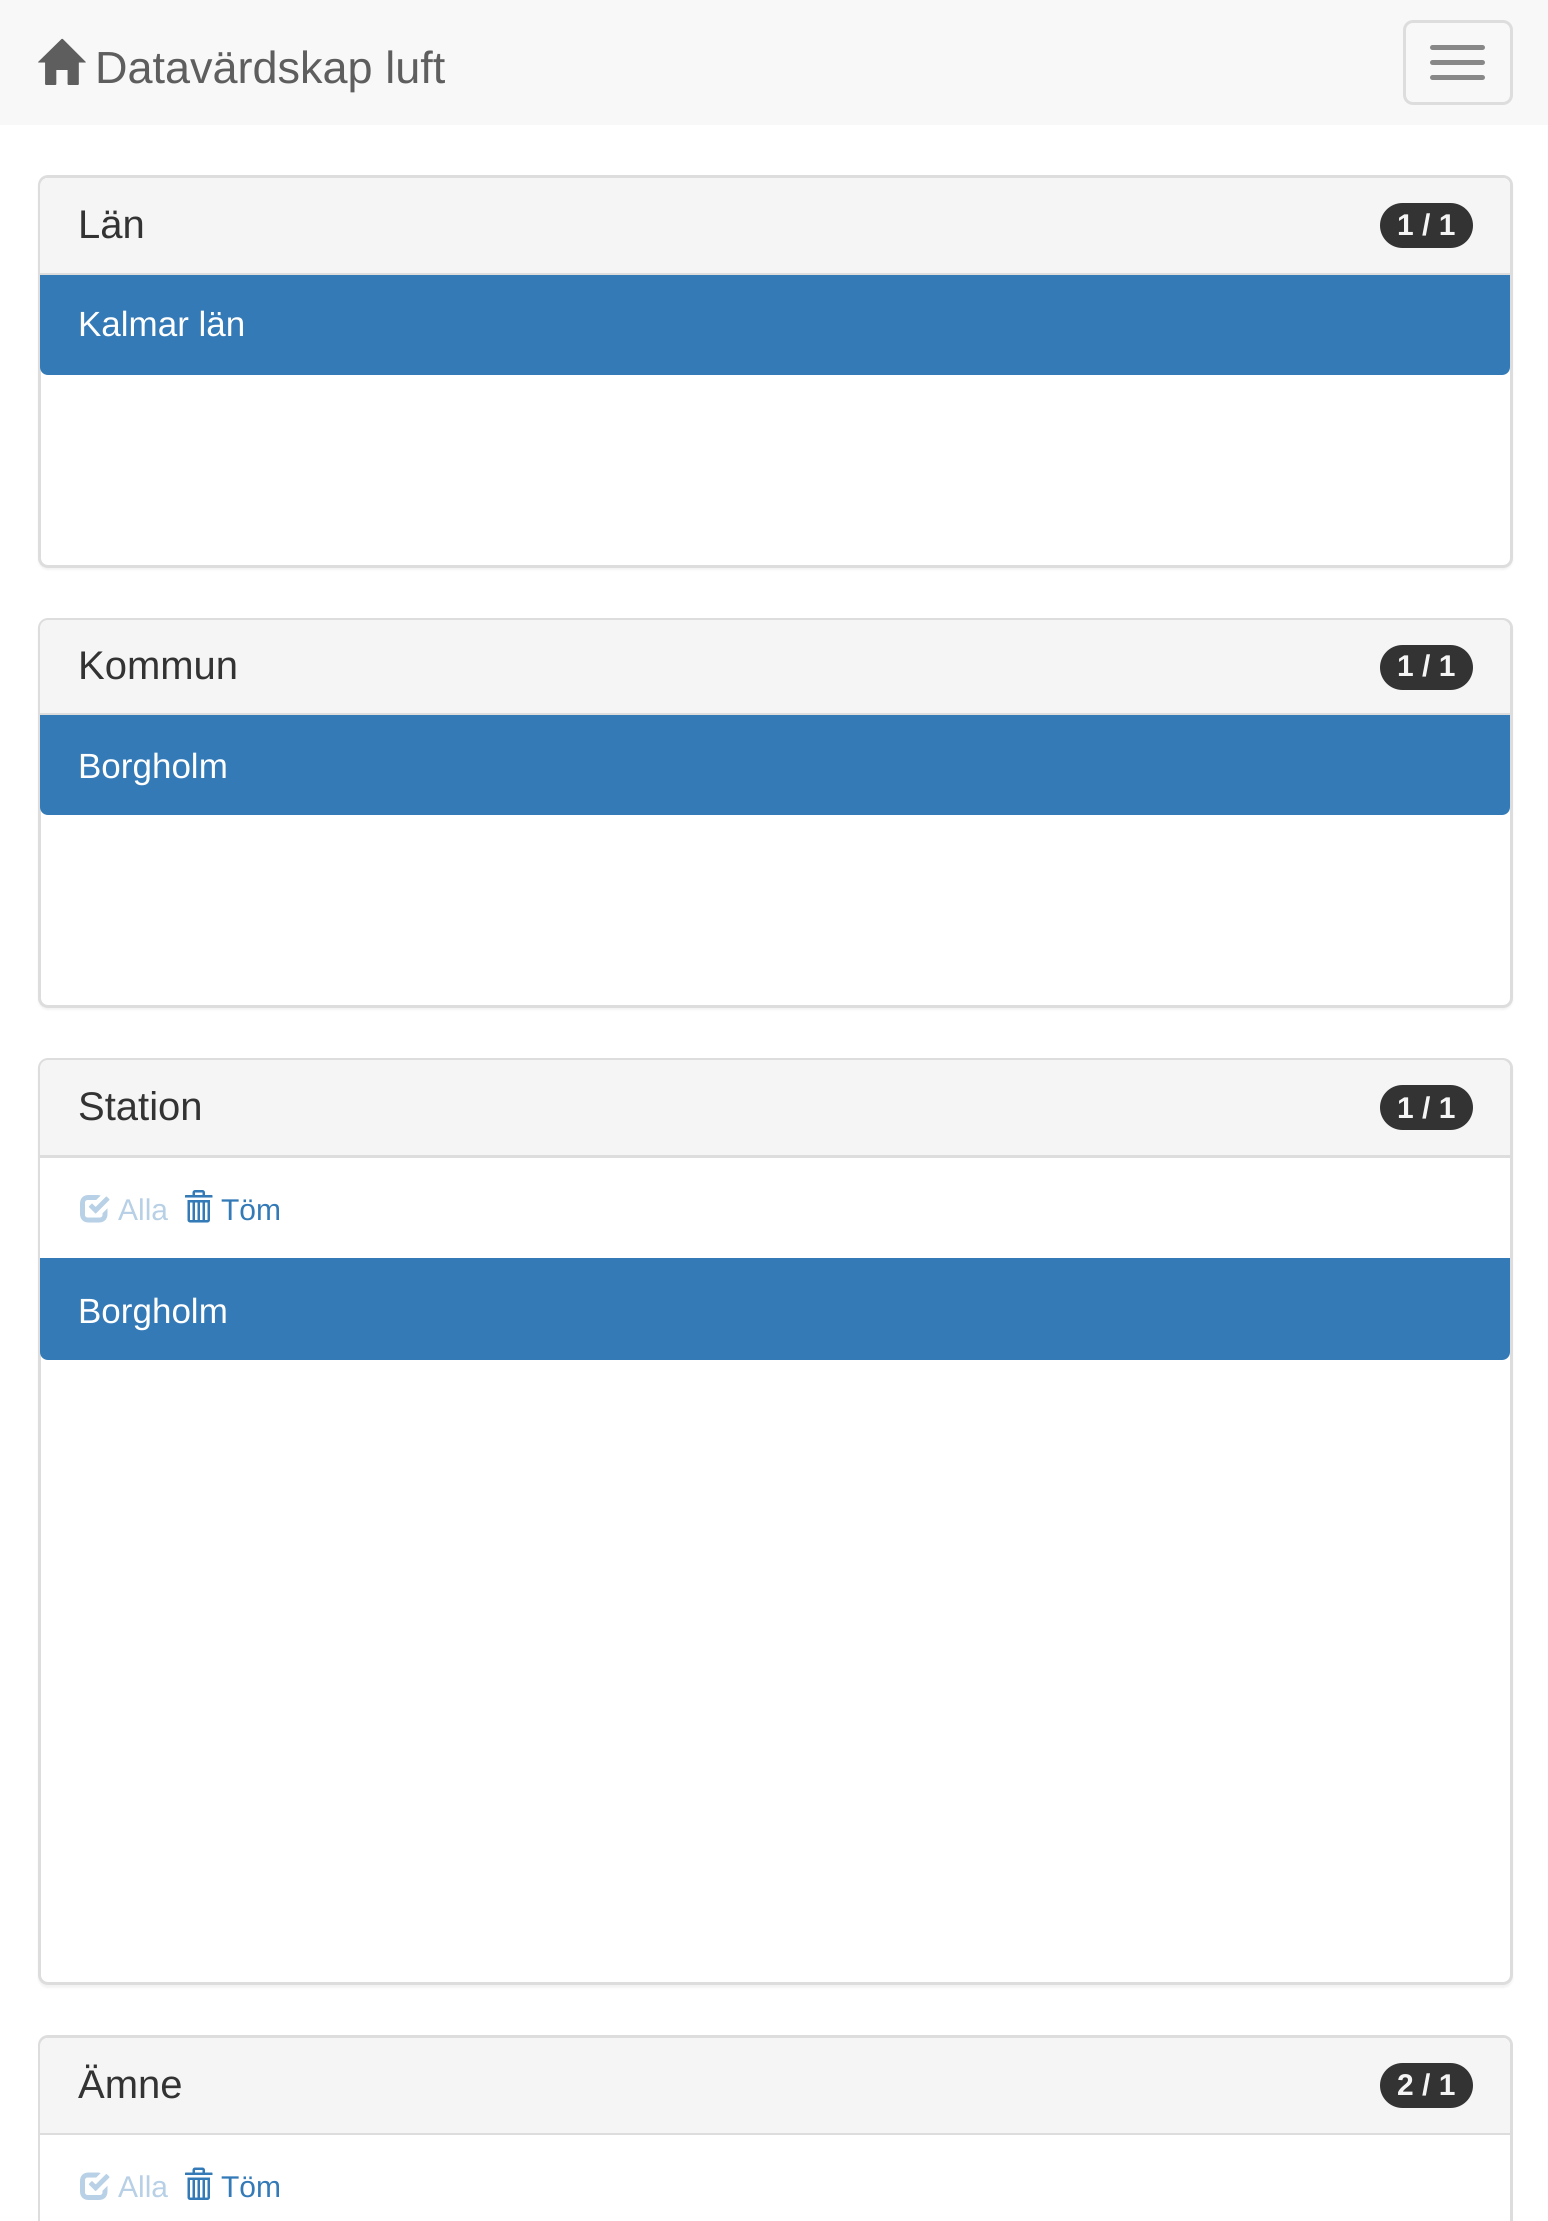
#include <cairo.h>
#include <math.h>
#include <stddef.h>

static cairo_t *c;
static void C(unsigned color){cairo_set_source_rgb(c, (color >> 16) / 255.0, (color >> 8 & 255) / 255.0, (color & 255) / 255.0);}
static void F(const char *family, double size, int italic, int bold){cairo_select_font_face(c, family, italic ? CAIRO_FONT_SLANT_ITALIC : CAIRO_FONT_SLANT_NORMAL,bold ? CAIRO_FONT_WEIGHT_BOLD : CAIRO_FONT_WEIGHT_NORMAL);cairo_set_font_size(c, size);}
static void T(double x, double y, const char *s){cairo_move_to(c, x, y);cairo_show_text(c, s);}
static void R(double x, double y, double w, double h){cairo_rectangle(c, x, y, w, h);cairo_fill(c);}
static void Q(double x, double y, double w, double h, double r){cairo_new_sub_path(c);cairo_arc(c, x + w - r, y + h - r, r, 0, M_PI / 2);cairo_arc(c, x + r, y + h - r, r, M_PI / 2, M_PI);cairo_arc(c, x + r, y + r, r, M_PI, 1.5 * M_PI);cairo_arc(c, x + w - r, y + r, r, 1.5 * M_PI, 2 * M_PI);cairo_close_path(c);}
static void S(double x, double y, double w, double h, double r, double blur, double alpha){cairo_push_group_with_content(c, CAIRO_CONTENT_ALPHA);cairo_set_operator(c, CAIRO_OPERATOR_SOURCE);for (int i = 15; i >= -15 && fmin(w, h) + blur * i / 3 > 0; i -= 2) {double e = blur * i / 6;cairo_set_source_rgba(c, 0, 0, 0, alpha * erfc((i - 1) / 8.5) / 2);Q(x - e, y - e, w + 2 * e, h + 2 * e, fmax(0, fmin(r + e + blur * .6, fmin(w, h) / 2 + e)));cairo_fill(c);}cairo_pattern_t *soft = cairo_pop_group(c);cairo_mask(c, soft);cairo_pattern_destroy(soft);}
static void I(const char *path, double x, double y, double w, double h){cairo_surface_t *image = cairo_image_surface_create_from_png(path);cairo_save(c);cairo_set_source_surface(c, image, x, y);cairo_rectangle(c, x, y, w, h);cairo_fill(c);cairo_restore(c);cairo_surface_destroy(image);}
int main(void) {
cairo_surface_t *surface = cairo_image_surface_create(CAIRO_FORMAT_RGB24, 1548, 2221);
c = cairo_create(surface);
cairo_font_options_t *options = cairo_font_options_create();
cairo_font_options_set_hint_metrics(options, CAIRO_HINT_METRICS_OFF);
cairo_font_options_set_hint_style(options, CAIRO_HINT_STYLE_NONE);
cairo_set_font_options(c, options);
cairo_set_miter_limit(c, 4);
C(0xffffff);
cairo_paint(c);
C(0xf8f8f8);
R(0,0,1548,125);
I("1.png",38,38,48,47);
F("Liberation Sans",45,0,0);
C(0x5e5e5e);
T(95,83,"Datavärdskap luft");
Q(1404.5,21.5,107,82,8.5);
C(0xdddddd);
cairo_set_line_width(c,3);
cairo_stroke(c);
C(0x888888);
Q(1430,45,55,5,2.5);
cairo_fill(c);
Q(1430,60,55,5,2.5);
cairo_fill(c);
Q(1430,75,55,5,2.5);
cairo_fill(c);
C(0x000000);
S(38,178,1475,392,10,1,.05);
C(0xffffff);
Q(39.5,176.5,1472,390,8.5);
cairo_fill_preserve(c);
C(0xdddddd);
cairo_stroke(c);
C(0xf5f5f5);
cairo_new_path(c);
cairo_move_to(c,48,178);
cairo_line_to(c,1502,178);
cairo_curve_to(c,1506.5,178,1510,181.5,1510,186);
cairo_line_to(c,1510,275);
cairo_line_to(c,40,275);
cairo_line_to(c,40,186);
cairo_curve_to(c,40,181.5,43.5,178,48,178);
cairo_close_path(c);
cairo_fill(c);
C(0xdddddd);
R(40,273,1470,2);
F("Liberation Sans",40,0,0);
C(0x333333);
T(78,238,"Län");
Q(1380,203,93,45,22.5);
cairo_fill(c);
F("Liberation Sans",30,0,1);
C(0xf5f5f5);
T(1397,235,"1 / 1");
C(0x337ab7);
cairo_new_path(c);
cairo_move_to(c,40,275);
cairo_line_to(c,1510,275);
cairo_line_to(c,1510,367);
cairo_curve_to(c,1510,371.5,1506.5,375,1502,375);
cairo_line_to(c,48,375);
cairo_curve_to(c,43.5,375,40,371.5,40,367);
cairo_close_path(c);
cairo_fill(c);
F("Liberation Sans",35,0,0);
C(0xffffff);
T(78,336,"Kalmar län");
C(0x000000);
S(38,620,1475,390,10,1,.05);
C(0xffffff);
Q(39.5,619.5,1472,387,8.5);
cairo_fill_preserve(c);
C(0xdddddd);
cairo_stroke(c);
C(0xf5f5f5);
cairo_new_path(c);
cairo_move_to(c,48,620);
cairo_line_to(c,1502,620);
cairo_curve_to(c,1506.5,620,1510,623.5,1510,628);
cairo_line_to(c,1510,715);
cairo_line_to(c,40,715);
cairo_line_to(c,40,628);
cairo_curve_to(c,40,623.5,43.5,620,48,620);
cairo_close_path(c);
cairo_fill(c);
C(0xdddddd);
R(40,713,1470,2);
F("Liberation Sans",40,0,0);
C(0x333333);
T(78,679,"Kommun");
Q(1380,645,93,45,22.5);
cairo_fill(c);
F("Liberation Sans",30,0,1);
C(0xf5f5f5);
T(1397,676,"1 / 1");
C(0x337ab7);
cairo_new_path(c);
cairo_move_to(c,40,715);
cairo_line_to(c,1510,715);
cairo_line_to(c,1510,807);
cairo_curve_to(c,1510,811.5,1506.5,815,1502,815);
cairo_line_to(c,48,815);
cairo_curve_to(c,43.5,815,40,811.5,40,807);
cairo_close_path(c);
cairo_fill(c);
F("Liberation Sans",35,0,0);
C(0xffffff);
T(78,778,"Borgholm");
C(0x000000);
S(38,1060,1475,928,10,1,.05);
C(0xffffff);
Q(39.5,1059.5,1472,924,8.5);
cairo_fill_preserve(c);
C(0xdddddd);
cairo_stroke(c);
C(0xf5f5f5);
cairo_new_path(c);
cairo_move_to(c,48,1060);
cairo_line_to(c,1502,1060);
cairo_curve_to(c,1506.5,1060,1510,1063.5,1510,1068);
cairo_line_to(c,1510,1158);
cairo_line_to(c,40,1158);
cairo_line_to(c,40,1068);
cairo_curve_to(c,40,1063.5,43.5,1060,48,1060);
cairo_close_path(c);
cairo_fill(c);
C(0xdddddd);
R(40,1155,1470,3);
F("Liberation Sans",40,0,0);
C(0x333333);
T(78,1120,"Station");
Q(1380,1085,93,45,22.5);
cairo_fill(c);
F("Liberation Sans",30,0,1);
C(0xf5f5f5);
T(1397,1118,"1 / 1");
C(0xffffff);
R(40,1158,1,100);
I("2.png",80,1195,30,28);
F("Liberation Sans",30,0,0);
C(0xb8d0e6);
T(118,1220,"Alla");
I("3.png",185,1190,28,33);
C(0x337ab7);
T(221,1220,"Töm");
cairo_new_path(c);
cairo_move_to(c,40,1258);
cairo_line_to(c,1510,1258);
cairo_line_to(c,1510,1352);
cairo_curve_to(c,1510,1356.5,1506.5,1360,1502,1360);
cairo_line_to(c,48,1360);
cairo_curve_to(c,43.5,1360,40,1356.5,40,1352);
cairo_close_path(c);
cairo_fill(c);
F("Liberation Sans",35,0,0);
C(0xffffff);
T(78,1323,"Borgholm");
Q(39.5,2036.5,1472,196,8.5);
C(0xdddddd);
cairo_stroke(c);
C(0xf5f5f5);
cairo_new_path(c);
cairo_move_to(c,48,2038);
cairo_line_to(c,1502,2038);
cairo_curve_to(c,1506.5,2038,1510,2041.5,1510,2046);
cairo_line_to(c,1510,2135);
cairo_line_to(c,40,2135);
cairo_line_to(c,40,2046);
cairo_curve_to(c,40,2041.5,43.5,2038,48,2038);
cairo_close_path(c);
cairo_fill(c);
C(0xdddddd);
R(40,2133,1470,2);
F("Liberation Sans",40,0,0);
C(0x333333);
T(78,2098,"Ämne");
Q(1380,2063,93,45,22.5);
cairo_fill(c);
F("Liberation Sans",30,0,1);
C(0xf5f5f5);
T(1397,2095,"2 / 1");
C(0xffffff);
R(40,2135,1,86);
I("4.png",80,2172,30,28);
F("Liberation Sans",30,0,0);
C(0xb8d0e6);
T(118,2197,"Alla");
I("5.png",185,2167,28,33);
C(0x337ab7);
T(221,2197,"Töm");
cairo_surface_write_to_png(surface, "o.png");
cairo_font_options_destroy(options);
cairo_destroy(c);
cairo_surface_destroy(surface);
return 0;
}
